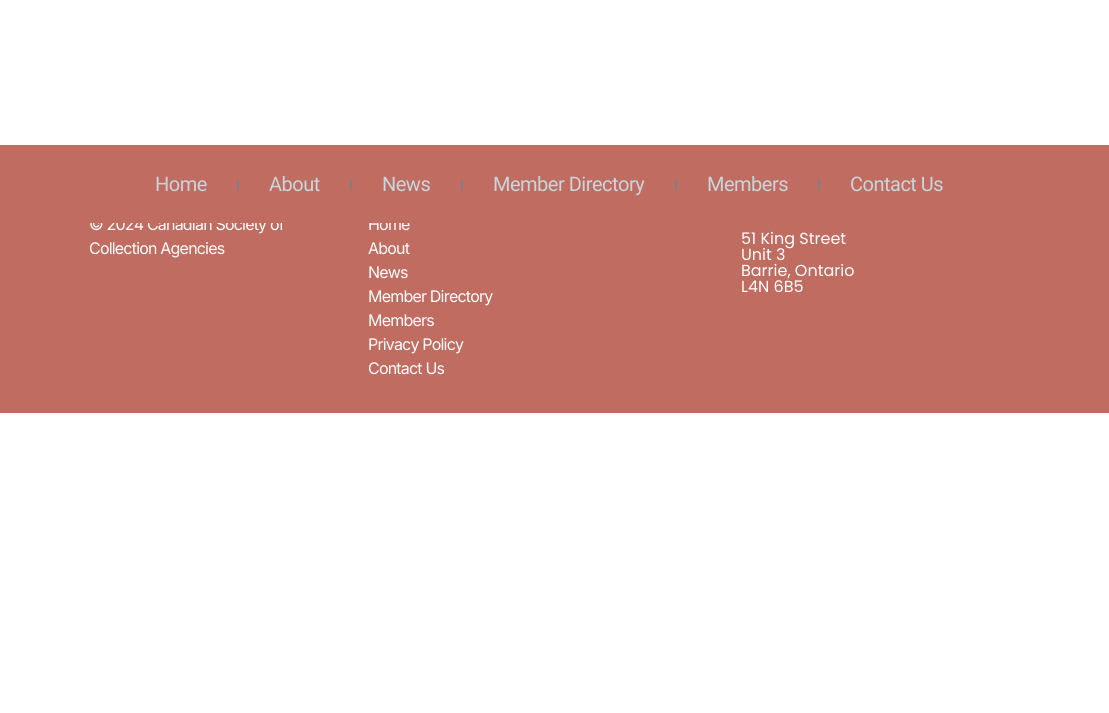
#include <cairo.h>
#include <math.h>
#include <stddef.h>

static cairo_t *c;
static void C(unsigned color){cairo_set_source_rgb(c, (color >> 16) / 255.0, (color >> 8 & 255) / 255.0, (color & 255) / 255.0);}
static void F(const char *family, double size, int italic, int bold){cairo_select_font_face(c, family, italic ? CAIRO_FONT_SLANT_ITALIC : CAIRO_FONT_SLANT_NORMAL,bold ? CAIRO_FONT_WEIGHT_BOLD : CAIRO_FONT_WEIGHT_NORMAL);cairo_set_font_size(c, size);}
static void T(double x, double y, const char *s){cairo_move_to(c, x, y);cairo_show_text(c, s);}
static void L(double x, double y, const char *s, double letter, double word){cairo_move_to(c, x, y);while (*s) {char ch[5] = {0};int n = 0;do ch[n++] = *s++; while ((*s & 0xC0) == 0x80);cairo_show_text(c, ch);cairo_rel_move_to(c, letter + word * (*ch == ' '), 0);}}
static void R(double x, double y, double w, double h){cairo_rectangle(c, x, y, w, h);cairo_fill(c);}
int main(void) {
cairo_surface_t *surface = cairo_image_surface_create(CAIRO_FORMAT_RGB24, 1109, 713);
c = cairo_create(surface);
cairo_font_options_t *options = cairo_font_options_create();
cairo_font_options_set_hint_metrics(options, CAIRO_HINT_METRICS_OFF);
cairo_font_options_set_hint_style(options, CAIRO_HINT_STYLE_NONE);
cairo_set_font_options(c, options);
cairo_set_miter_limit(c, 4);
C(0xffffff);
cairo_paint(c);
C(0xc06c61);
R(0,223,1109,190);
F("Inter",16,0,0);
C(0xffffff);
L(89,230,"© 2024 Canadian Society of",-.8,0);
L(368,230,"Home",-.8,0);
C(0xc06c61);
R(0,145,1109,78);
F("Roboto",20,0,0);
C(0xc8d5dc);
L(155,191,"Home",-.5,0);
C(0x808080);
R(237,179,2,11);
C(0xc8d5dc);
L(269,191,"About",-.5,0);
C(0x808080);
R(350,179,2,11);
C(0xc8d5dc);
L(382,191,"News",-.5,0);
C(0x808080);
R(461,179,2,11);
C(0xc8d5dc);
L(493,191,"Member Directory",-.5,0);
C(0x808080);
R(675,179,2,11);
C(0xc8d5dc);
L(707,191,"Members",-.5,0);
C(0x808080);
R(818,179,2,11);
C(0xc8d5dc);
L(850,191,"Contact Us",-.5,0);
F("Inter",16,0,0);
C(0xffffff);
L(89,254,"Collection Agencies",-.8,0);
L(368,254,"About",-.8,0);
L(368,278,"News",-.8,0);
L(368,302,"Member Directory",-.8,0);
L(368,326,"Members",-.8,0);
L(368,350,"Privacy Policy",-.8,0);
L(368,374,"Contact Us",-.8,0);
F("Poppins",16,0,0);
T(741,244,"51 King Street");
T(741,260,"Unit 3");
T(741,276,"Barrie, Ontario");
T(741,292,"L4N 6B5");
cairo_surface_write_to_png(surface, "o.png");
cairo_font_options_destroy(options);
cairo_destroy(c);
cairo_surface_destroy(surface);
return 0;
}
